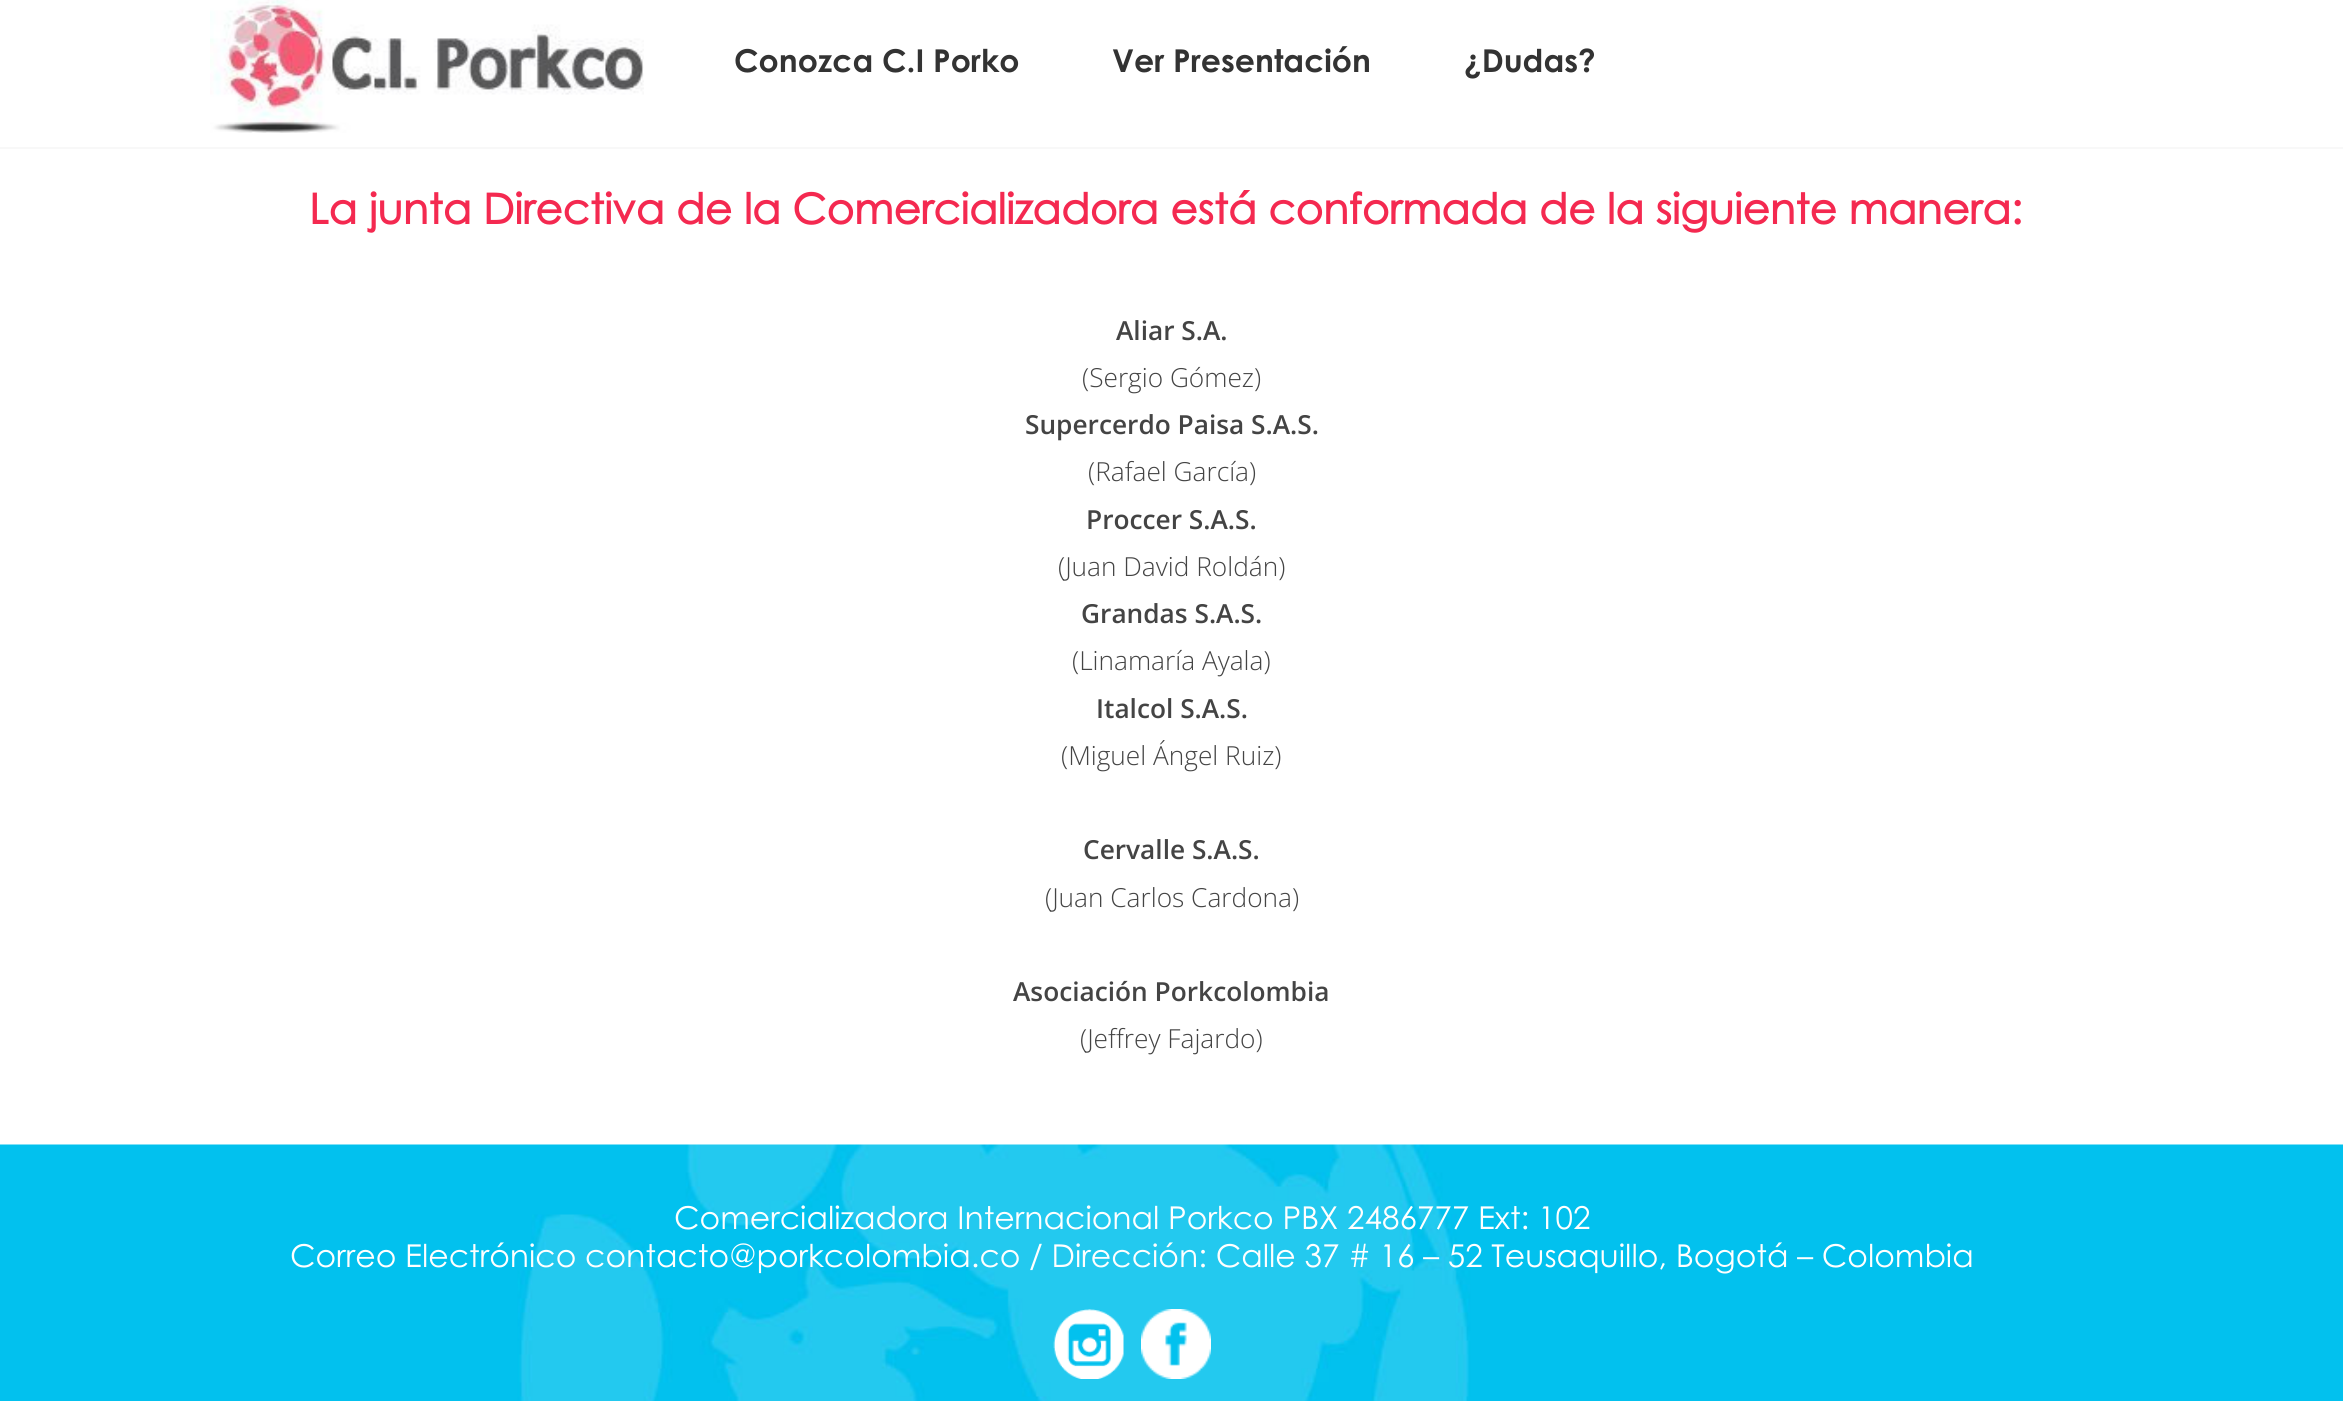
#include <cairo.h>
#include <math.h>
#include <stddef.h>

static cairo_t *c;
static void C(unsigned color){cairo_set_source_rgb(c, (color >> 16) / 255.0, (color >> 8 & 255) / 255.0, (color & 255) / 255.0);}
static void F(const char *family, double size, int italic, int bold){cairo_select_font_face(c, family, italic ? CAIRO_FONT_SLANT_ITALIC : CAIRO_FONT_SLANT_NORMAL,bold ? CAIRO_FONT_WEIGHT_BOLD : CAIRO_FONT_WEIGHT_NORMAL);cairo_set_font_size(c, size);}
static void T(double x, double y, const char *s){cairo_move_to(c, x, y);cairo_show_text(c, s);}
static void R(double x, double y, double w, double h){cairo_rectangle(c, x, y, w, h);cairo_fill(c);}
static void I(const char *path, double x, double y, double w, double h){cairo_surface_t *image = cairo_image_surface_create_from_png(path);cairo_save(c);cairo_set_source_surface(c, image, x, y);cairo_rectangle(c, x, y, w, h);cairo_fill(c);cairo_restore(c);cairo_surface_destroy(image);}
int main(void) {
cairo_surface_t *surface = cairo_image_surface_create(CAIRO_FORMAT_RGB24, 2343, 1401);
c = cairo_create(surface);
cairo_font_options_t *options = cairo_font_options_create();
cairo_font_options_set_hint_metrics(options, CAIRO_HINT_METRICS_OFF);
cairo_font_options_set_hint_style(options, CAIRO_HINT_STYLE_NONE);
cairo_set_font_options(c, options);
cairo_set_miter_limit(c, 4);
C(0xffffff);
cairo_paint(c);
C(0xf8f8f8);
R(0,147,2343,2);
I("1.png",210,0,434,133);
F("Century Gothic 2",31.5,0,1);
C(0x333333);
T(734,72,"Conozca C.I Porko");
T(1112,72,"Ver Presentación");
T(1464,72,"¿Dudas?");
F("Century Gothic",42,0,1);
C(0xf42950);
T(309,224,"La junta Directiva de la Comercializadora está conformada de la siguiente manera:");
F("Open Sans SemiBold",26.25,0,0);
C(0x444444);
T(1116,340,"Aliar S.A.");
F("Open Sans Light",26.25,0,0);
T(1082,387,"(Sergio Gómez)");
F("Open Sans SemiBold",26.25,0,0);
T(1025,434,"Supercerdo Paisa S.A.S.");
F("Open Sans Light",26.25,0,0);
T(1088,481,"(Rafael García)");
F("Open Sans SemiBold",26.25,0,0);
T(1086,529,"Proccer S.A.S.");
F("Open Sans Light",26.25,0,0);
T(1058,576,"(Juan David Roldán)");
F("Open Sans SemiBold",26.25,0,0);
T(1081,623,"Grandas S.A.S.");
F("Open Sans Light",26.25,0,0);
T(1072,670,"(Linamaría Ayala)");
F("Open Sans SemiBold",26.25,0,0);
T(1096,718,"Italcol S.A.S.");
F("Open Sans Light",26.25,0,0);
T(1061,765,"(Miguel Ángel Ruiz)");
F("Open Sans SemiBold",26.25,0,0);
T(1083,859,"Cervalle S.A.S.");
F("Open Sans Light",26.25,0,0);
T(1045,907,"(Juan Carlos Cardona)");
F("Open Sans SemiBold",26.25,0,0);
T(1013,1001,"Asociación Porkcolombia");
F("Open Sans Light",26.25,0,0);
T(1080,1048,"(Jeffrey Fajardo)");
I("2.png",0,1144,2343,257);
F("Century Gothic",31.5,0,0);
C(0xffffff);
T(674,1229,"Comercializadora Internacional Porkco PBX 2486777 Ext: 102");
T(290,1267,"Correo Electrónico contacto@porkcolombia.co / Dirección: Calle 37 # 16 – 52 Teusaquillo, Bogotá – Colombia");
I("3.png",1053,1309,71,70);
I("4.png",1141,1309,70,70);
cairo_surface_write_to_png(surface, "o.png");
cairo_font_options_destroy(options);
cairo_destroy(c);
cairo_surface_destroy(surface);
return 0;
}
